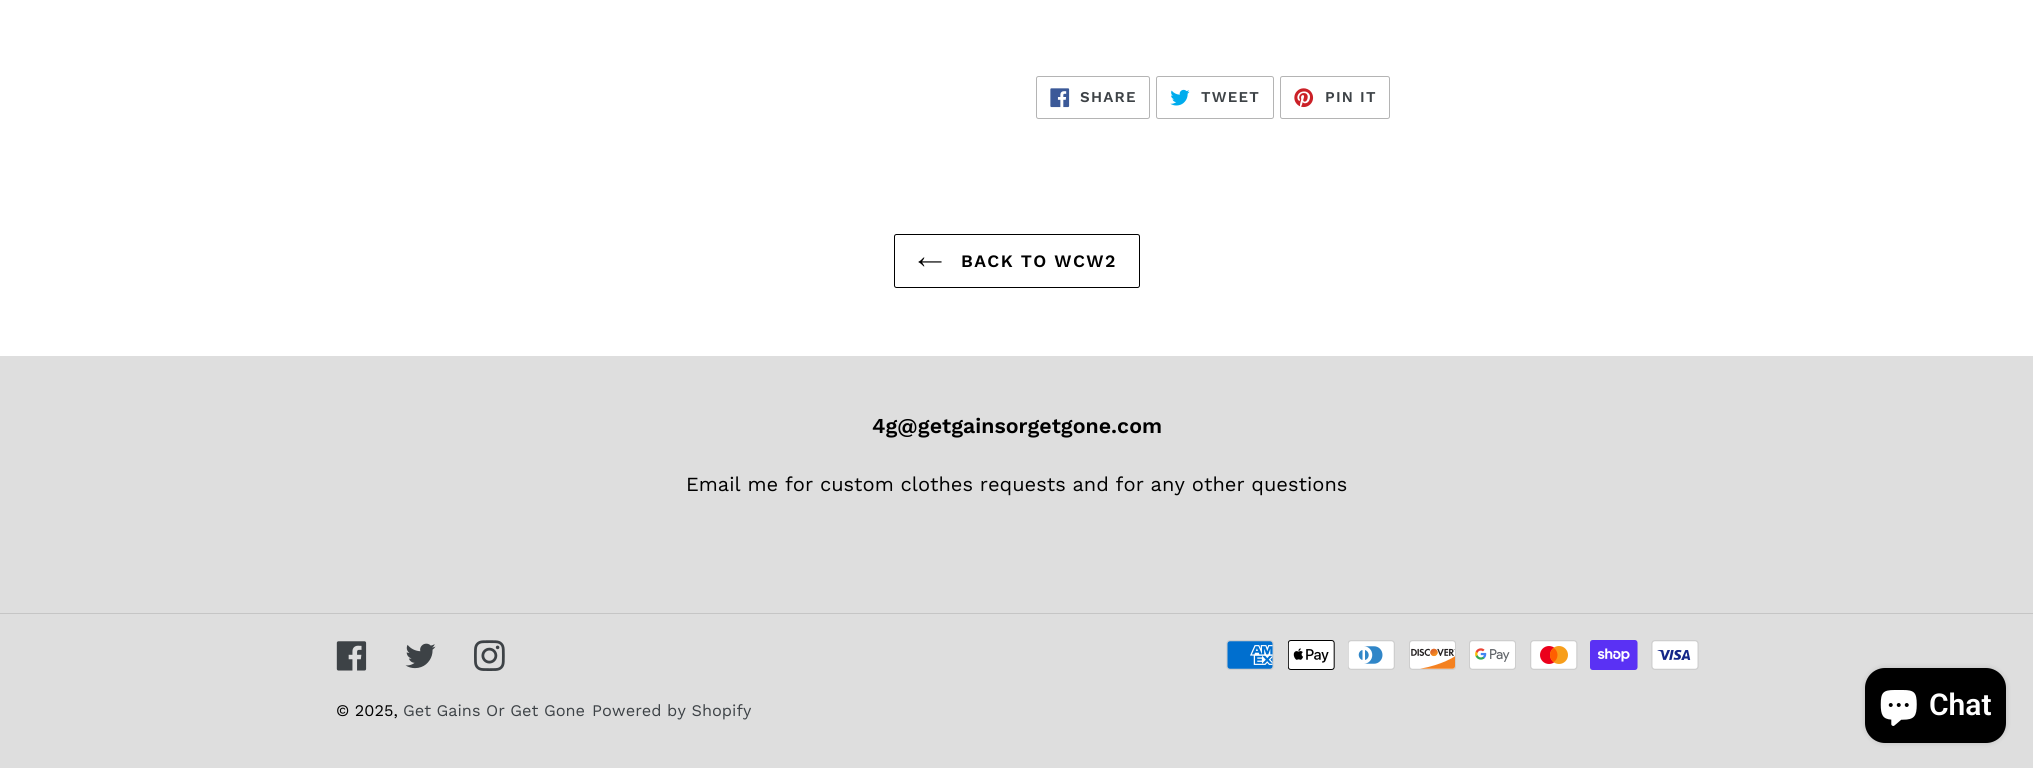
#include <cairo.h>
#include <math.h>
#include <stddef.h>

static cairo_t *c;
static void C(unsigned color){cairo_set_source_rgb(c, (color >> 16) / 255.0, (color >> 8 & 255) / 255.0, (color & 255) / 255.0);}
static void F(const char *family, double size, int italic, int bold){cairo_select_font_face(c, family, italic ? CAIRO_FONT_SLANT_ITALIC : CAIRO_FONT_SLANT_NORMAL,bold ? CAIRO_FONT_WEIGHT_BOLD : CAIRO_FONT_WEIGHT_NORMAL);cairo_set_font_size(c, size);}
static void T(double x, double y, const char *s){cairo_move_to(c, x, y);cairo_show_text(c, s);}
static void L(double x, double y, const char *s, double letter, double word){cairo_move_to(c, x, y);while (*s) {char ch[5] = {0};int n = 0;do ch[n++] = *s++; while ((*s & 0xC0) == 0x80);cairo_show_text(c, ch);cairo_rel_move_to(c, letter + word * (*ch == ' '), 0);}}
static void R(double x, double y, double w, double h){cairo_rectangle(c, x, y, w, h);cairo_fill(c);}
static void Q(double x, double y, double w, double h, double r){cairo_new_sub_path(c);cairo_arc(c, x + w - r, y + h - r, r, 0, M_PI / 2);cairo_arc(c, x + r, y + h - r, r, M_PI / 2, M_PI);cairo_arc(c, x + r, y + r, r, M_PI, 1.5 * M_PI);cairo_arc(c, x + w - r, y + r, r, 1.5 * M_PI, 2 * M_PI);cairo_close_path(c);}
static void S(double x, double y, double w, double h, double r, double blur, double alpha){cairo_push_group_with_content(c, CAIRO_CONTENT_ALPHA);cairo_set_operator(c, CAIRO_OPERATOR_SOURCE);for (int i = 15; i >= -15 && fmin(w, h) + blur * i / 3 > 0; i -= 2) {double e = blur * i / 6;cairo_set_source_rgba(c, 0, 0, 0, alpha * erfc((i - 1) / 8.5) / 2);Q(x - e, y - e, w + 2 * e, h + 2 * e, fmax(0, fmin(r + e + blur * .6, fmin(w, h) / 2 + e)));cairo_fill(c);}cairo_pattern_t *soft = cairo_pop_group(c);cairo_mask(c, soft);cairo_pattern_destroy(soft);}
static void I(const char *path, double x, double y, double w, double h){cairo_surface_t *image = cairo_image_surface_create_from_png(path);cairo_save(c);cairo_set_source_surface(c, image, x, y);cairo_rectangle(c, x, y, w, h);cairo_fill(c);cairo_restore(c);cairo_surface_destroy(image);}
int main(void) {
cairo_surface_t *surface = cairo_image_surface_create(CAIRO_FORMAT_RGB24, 2033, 768);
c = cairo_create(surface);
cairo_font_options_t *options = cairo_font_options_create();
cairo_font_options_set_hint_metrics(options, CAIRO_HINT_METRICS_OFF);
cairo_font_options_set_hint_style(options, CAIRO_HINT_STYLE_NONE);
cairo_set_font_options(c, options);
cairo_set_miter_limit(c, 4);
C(0xffffff);
cairo_paint(c);
Q(1036.5,76.5,113,42,2);
C(0xb4b4b4);
cairo_set_line_width(c,1);
cairo_stroke(c);
I("1.png",1050,88,20,20);
F("Work Sans SemiBold",15,0,0);
C(0x3d4246);
L(1080,102,"SHARE",1.25,0);
Q(1156.5,76.5,117,42,2);
C(0xb4b4b4);
cairo_stroke(c);
I("2.png",1170,89,20,17);
C(0x3d4246);
L(1201,102,"TWEET",1.25,0);
Q(1280.5,76.5,109,42,2);
C(0xb4b4b4);
cairo_stroke(c);
I("3.png",1294,88,20,20);
C(0x3d4246);
L(1325,102,"PIN IT",1.25,0);
Q(894.5,234.5,245,53,2);
C(0x000000);
cairo_stroke(c);
I("4.png",918,257,24,10);
F("Work Sans SemiBold",17.5,0,0);
L(961,267,"BACK TO WCW2",1.4,0);
C(0xdedede);
R(0,356,2033,412);
F("Work Sans SemiBold",21.25,0,0);
C(0x000000);
T(872,433,"4g@getgainsorgetgone.com");
F("Work Sans",20,0,0);
T(686,491,"Email me for custom clothes requests and for any other questions");
C(0xc5c5c5);
R(0,613,2033,1);
I("5.png",336,641,31,30);
I("6.png",405,643,31,26);
I("7.png",474,640,31,31);
I("8.png",1226,640,48,30);
I("9.png",1288,640,47,30);
I("10.png",1348,640,47,30);
I("11.png",1409,640,47,30);
I("12.png",1469,640,47,30);
I("13.png",1530,640,48,30);
I("14.png",1590,640,48,30);
I("15.png",1651,640,48,30);
F("Work Sans",16.25,0,0);
C(0x000000);
T(336,716,"© 2025,");
C(0x3d4246);
T(403,716,"Get Gains Or Get Gone");
T(592,716,"Powered by Shopify");
C(0x000000);
S(1865,668,141,75,20,3,.15);
C(0x000000);
Q(1865,668,141,75,20);
cairo_fill(c);
I("16.png",1880,690,37,36);
F("Roboto SemiBold",30,0,0);
C(0xffffff);
T(1929,715,"Chat");
cairo_surface_write_to_png(surface, "o.png");
cairo_font_options_destroy(options);
cairo_destroy(c);
cairo_surface_destroy(surface);
return 0;
}
